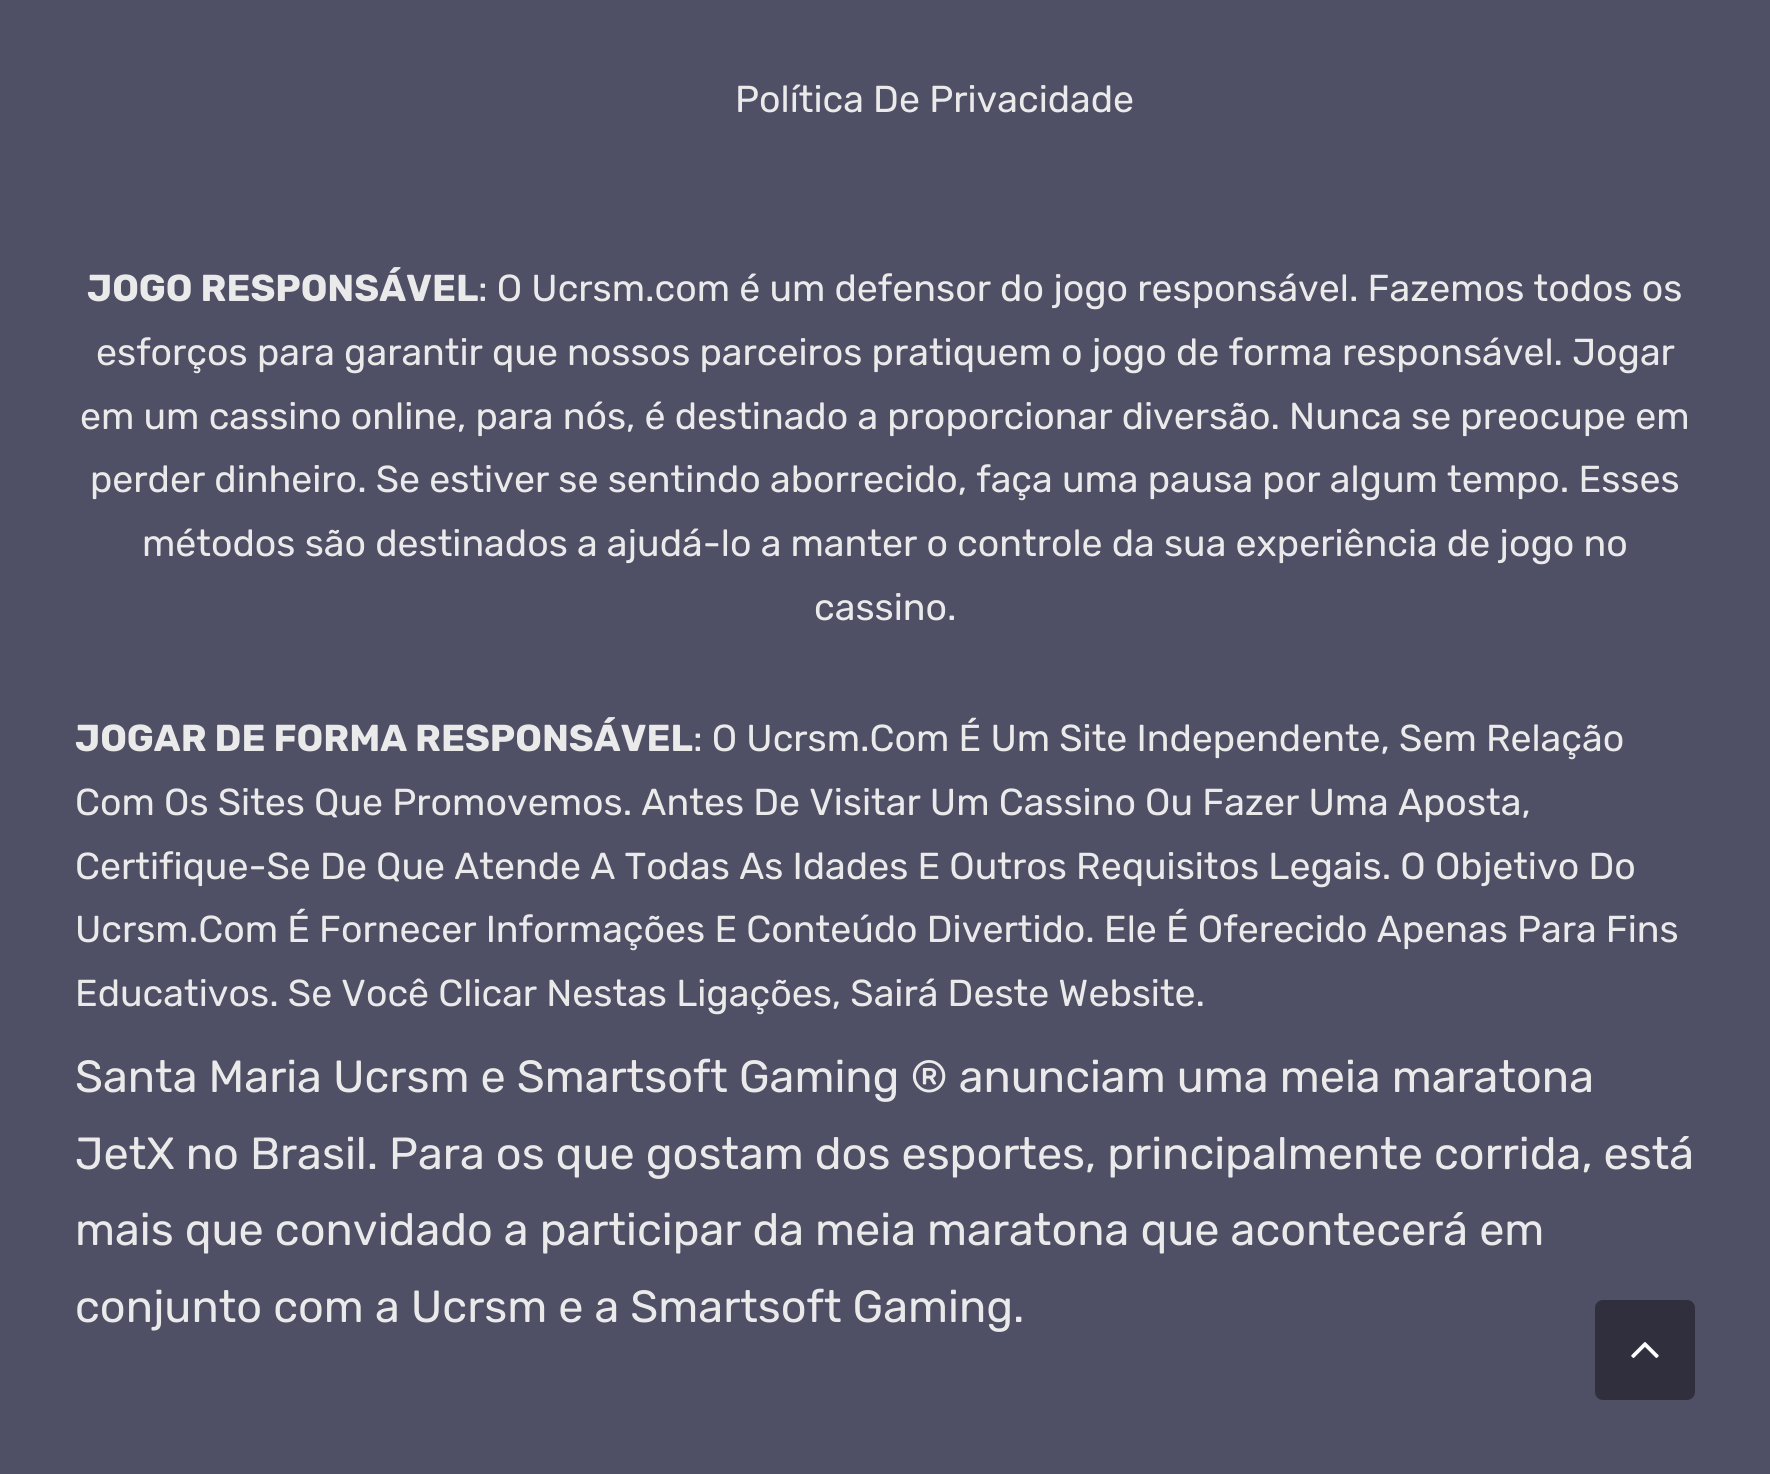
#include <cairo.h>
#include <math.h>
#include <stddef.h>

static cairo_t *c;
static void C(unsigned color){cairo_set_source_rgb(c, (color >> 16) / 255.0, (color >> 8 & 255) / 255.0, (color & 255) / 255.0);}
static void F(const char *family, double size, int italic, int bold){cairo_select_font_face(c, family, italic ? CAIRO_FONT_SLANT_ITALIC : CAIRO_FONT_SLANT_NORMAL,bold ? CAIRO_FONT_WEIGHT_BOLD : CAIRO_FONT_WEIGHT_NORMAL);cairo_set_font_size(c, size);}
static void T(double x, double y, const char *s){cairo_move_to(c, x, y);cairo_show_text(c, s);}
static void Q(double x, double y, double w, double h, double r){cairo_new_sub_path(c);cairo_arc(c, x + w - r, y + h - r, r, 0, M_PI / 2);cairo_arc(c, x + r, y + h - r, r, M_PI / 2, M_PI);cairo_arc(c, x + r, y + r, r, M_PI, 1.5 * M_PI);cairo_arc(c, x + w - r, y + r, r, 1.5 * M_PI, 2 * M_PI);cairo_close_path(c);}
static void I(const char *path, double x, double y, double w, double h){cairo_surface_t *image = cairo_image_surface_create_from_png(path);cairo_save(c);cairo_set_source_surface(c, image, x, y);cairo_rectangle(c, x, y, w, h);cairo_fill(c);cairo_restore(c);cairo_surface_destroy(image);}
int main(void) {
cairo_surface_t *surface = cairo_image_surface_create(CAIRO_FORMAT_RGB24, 1770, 1474);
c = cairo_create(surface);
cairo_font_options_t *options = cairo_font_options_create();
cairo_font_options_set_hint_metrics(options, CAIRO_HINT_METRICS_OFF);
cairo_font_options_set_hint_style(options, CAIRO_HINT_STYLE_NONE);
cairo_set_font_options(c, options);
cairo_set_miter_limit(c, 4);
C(0x4f4f65);
cairo_paint(c);
F("Rubik",37.5,0,0);
C(0xeaeaea);
T(735,112,"Política De Privacidade");
F("Rubik",37.5,0,1);
T(87,301,"JOGO RESPONSÁVEL");
F("Rubik",37.5,0,0);
T(478,301,": O Ucrsm.com é um defensor do jogo responsável. Fazemos todos os");
T(96,365,"esforços para garantir que nossos parceiros pratiquem o jogo de forma responsável. Jogar");
T(80,429,"em um cassino online, para nós, é destinado a proporcionar diversão. Nunca se preocupe em");
T(90,492,"perder dinheiro. Se estiver se sentindo aborrecido, faça uma pausa por algum tempo. Esses");
T(142,556,"métodos são destinados a ajudá-lo a manter o controle da sua experiência de jogo no");
T(814,620,"cassino.");
F("Rubik",37.5,0,1);
T(75,751,"JOGAR DE FORMA RESPONSÁVEL");
F("Rubik",37.5,0,0);
T(693,751,": O Ucrsm.Com É Um Site Independente, Sem Relação");
T(75,815,"Com Os Sites Que Promovemos. Antes De Visitar Um Cassino Ou Fazer Uma Aposta,");
T(75,879,"Certifique-Se De Que Atende A Todas As Idades E Outros Requisitos Legais. O Objetivo Do");
T(75,942,"Ucrsm.Com É Fornecer Informações E Conteúdo Divertido. Ele É Oferecido Apenas Para Fins");
T(75,1006,"Educativos. Se Você Clicar Nestas Ligações, Sairá Deste Website.");
F("Rubik",45,0,0);
T(75,1092,"Santa Maria Ucrsm e Smartsoft Gaming ® anunciam uma meia maratona");
T(75,1169,"JetX no Brasil. Para os que gostam dos esportes, principalmente corrida, está");
T(75,1245,"mais que convidado a participar da meia maratona que acontecerá em");
T(75,1322,"conjunto com a Ucrsm e a Smartsoft Gaming.");
C(0x2f2f3d);
Q(1595,1300,100,100,8);
cairo_fill(c);
I("1.png",1631,1342,28,16);
cairo_surface_write_to_png(surface, "o.png");
cairo_font_options_destroy(options);
cairo_destroy(c);
cairo_surface_destroy(surface);
return 0;
}
